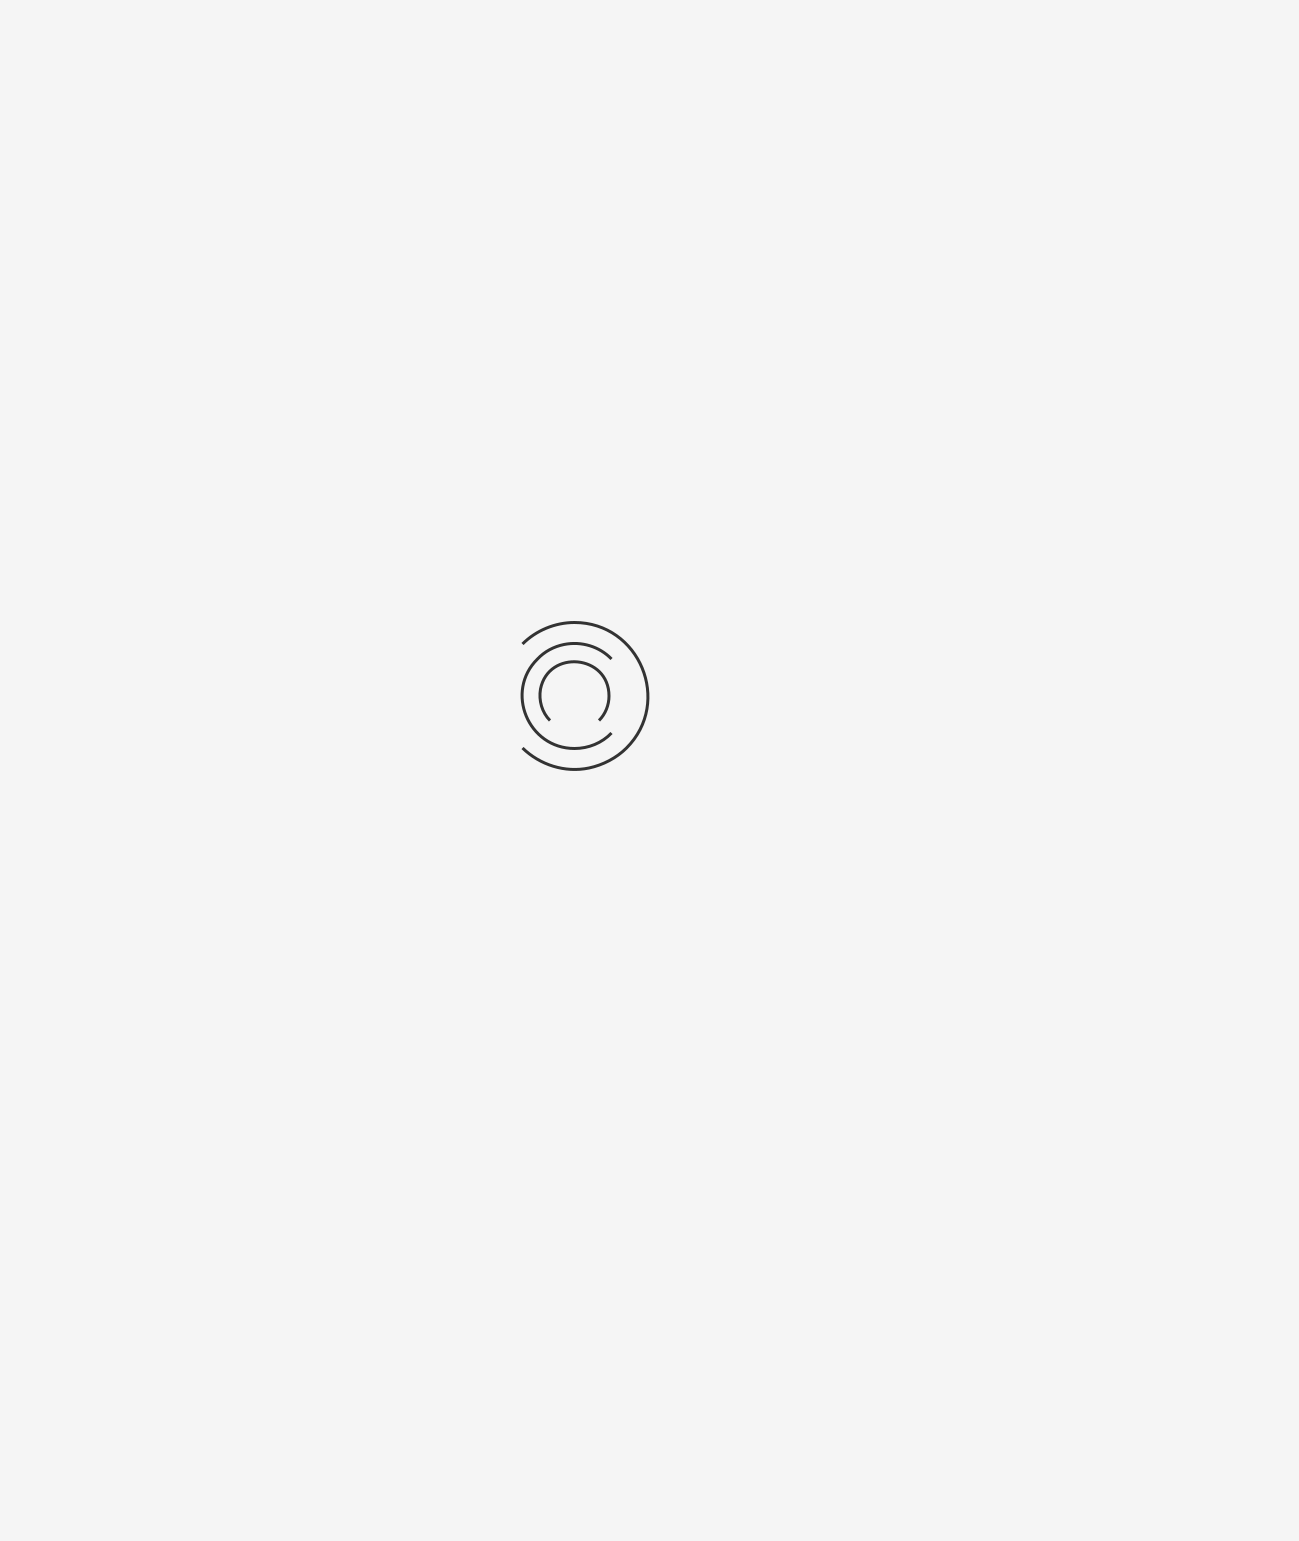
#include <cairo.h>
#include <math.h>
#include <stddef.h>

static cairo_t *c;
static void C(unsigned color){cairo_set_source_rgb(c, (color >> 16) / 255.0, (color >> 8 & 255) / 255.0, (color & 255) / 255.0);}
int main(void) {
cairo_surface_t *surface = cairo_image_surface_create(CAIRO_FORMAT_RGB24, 1299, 1541);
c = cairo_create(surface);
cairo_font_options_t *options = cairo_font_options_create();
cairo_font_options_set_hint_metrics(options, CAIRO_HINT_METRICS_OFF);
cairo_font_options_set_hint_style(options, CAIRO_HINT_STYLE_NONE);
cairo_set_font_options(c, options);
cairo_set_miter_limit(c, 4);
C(0xf5f5f5);
cairo_paint(c);
cairo_new_path(c);
cairo_move_to(c,522.5,644);
cairo_curve_to(c,536,630.5,555,622.5,574.5,622.5);
cairo_curve_to(c,639.5,622.5,672.5,702,626.5,748);
cairo_curve_to(c,616.5,758,603,765,589,768);
cairo_curve_to(c,565,773,540,765,522.5,748);
C(0x333333);
cairo_set_line_width(c,3);
cairo_stroke(c);
cairo_new_path(c);
cairo_move_to(c,611.5,733);
cairo_curve_to(c,602,743,588.5,748.5,574.5,748.5);
cairo_curve_to(c,528,748.5,504.5,691.5,537.5,659);
cairo_curve_to(c,544.5,651.5,554,646.5,564,644.5);
cairo_curve_to(c,581.5,641,599.5,646.5,611.5,659);
cairo_stroke(c);
cairo_new_path(c);
cairo_move_to(c,550,720.5);
cairo_curve_to(c,542,712.5,538.5,700.5,540.5,689);
cairo_curve_to(c,548.5,649,609,654.5,609,696);
cairo_curve_to(c,609,705,605.5,714,599,720.5);
cairo_stroke(c);
cairo_surface_write_to_png(surface, "o.png");
cairo_font_options_destroy(options);
cairo_destroy(c);
cairo_surface_destroy(surface);
return 0;
}
